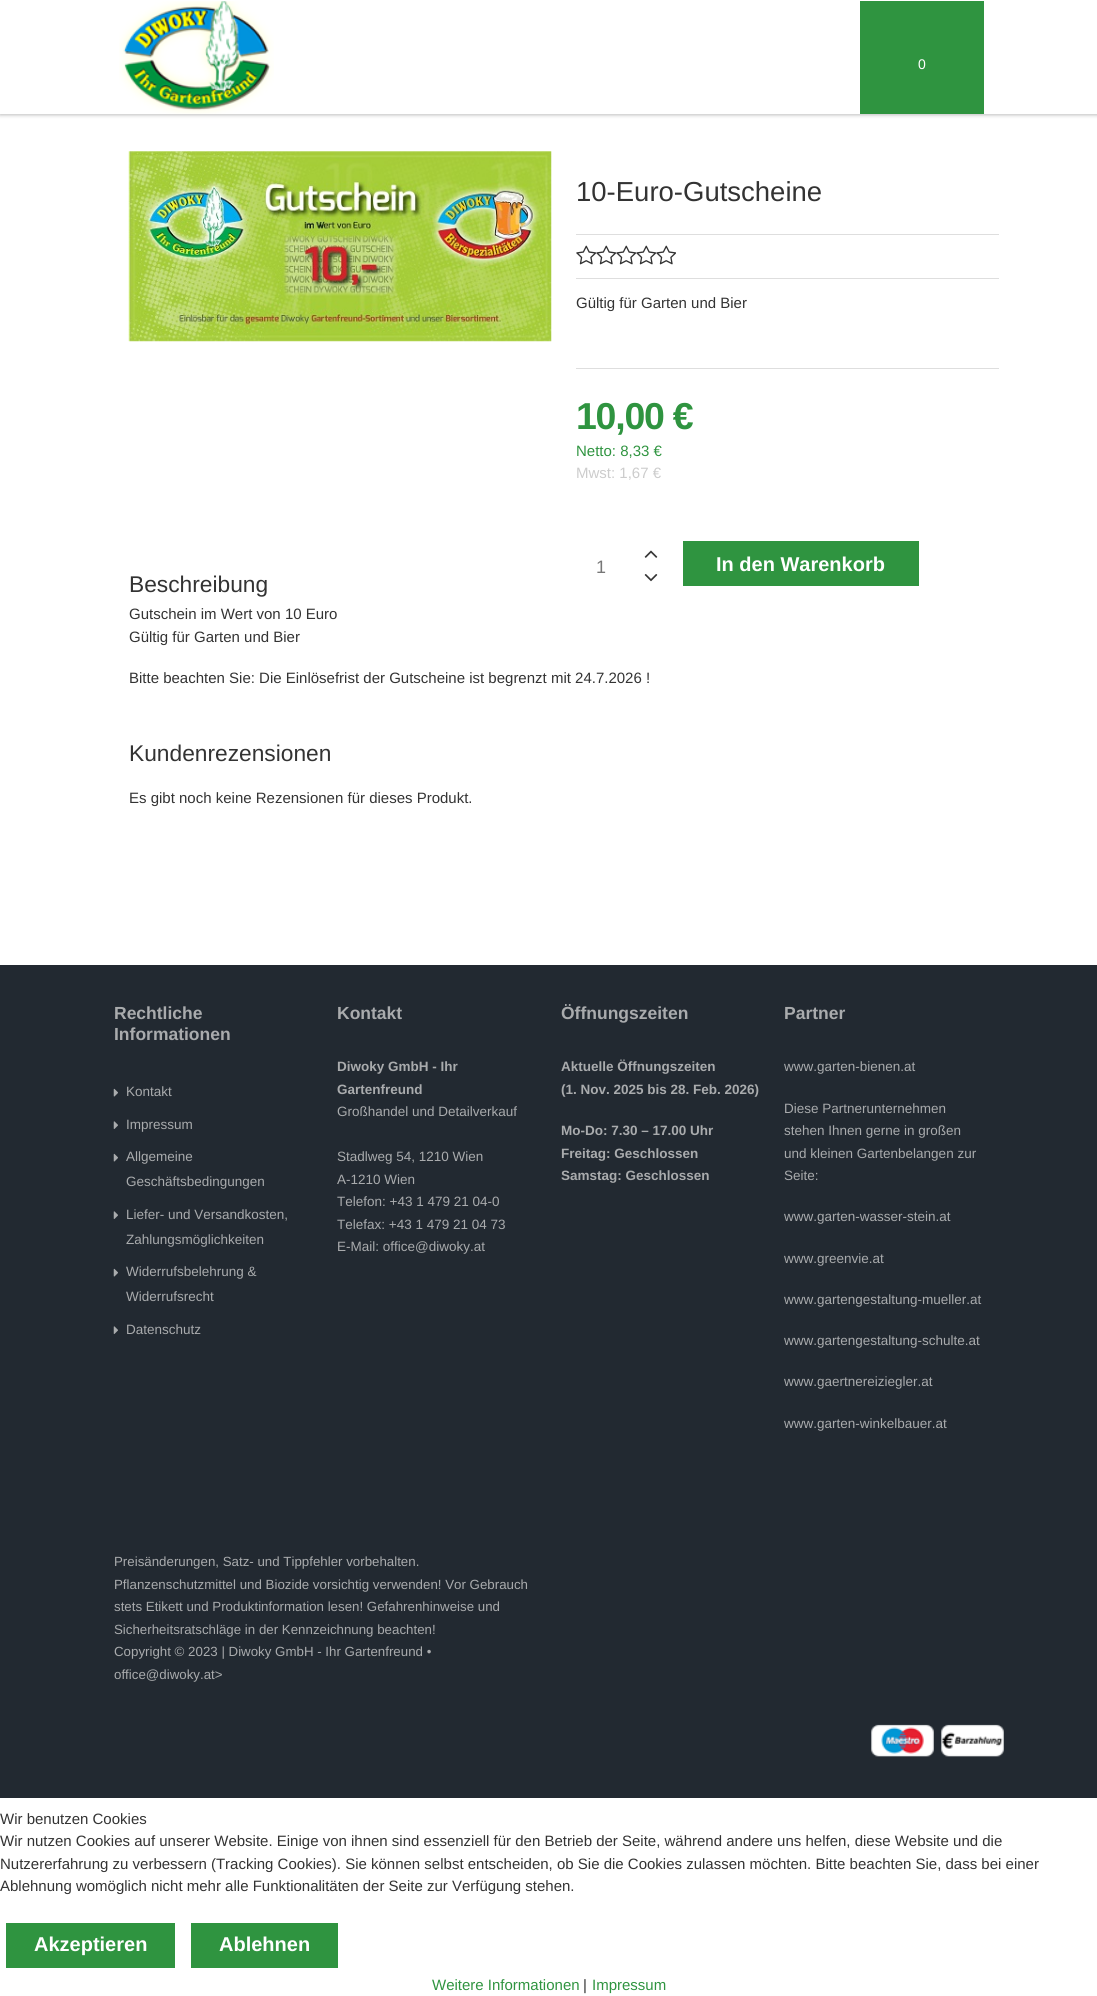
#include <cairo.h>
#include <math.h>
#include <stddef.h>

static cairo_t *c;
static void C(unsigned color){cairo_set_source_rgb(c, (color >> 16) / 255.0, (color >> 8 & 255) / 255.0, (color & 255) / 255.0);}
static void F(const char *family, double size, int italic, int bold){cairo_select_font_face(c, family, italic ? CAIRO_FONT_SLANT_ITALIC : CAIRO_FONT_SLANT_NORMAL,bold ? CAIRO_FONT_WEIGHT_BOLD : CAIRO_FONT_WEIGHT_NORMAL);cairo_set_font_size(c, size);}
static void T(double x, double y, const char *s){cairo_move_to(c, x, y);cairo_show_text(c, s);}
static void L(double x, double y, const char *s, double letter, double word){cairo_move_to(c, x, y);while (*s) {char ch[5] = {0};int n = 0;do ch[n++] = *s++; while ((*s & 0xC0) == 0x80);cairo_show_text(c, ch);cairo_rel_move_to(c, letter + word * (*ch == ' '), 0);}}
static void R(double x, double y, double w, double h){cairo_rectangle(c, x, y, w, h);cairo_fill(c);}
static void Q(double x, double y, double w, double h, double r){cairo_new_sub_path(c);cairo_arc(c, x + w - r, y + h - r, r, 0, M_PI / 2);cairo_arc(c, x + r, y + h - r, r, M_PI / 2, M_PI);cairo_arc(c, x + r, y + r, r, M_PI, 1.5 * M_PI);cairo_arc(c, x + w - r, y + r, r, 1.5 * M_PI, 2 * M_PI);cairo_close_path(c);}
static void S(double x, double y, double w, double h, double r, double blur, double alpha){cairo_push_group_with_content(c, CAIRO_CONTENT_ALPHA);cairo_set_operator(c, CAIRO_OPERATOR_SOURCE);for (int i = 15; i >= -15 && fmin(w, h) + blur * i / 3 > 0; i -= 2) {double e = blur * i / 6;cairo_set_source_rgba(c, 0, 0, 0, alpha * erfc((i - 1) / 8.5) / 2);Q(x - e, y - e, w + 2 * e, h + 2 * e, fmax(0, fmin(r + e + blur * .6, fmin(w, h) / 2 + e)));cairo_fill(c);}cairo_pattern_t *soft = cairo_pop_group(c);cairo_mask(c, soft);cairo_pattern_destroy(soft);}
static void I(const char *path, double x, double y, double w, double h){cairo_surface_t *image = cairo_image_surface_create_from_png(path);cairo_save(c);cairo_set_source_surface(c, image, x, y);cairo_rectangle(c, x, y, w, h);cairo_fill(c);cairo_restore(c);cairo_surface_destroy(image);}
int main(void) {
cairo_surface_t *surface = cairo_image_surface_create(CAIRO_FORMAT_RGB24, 1097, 1996);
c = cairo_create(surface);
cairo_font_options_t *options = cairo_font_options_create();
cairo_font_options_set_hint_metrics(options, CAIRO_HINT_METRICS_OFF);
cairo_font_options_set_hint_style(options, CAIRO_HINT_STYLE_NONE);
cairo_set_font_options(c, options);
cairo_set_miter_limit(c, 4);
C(0xffffff);
cairo_paint(c);
cairo_save(c);
cairo_set_fill_rule(c,CAIRO_FILL_RULE_EVEN_ODD);
cairo_new_path(c);
cairo_move_to(c,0,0);
cairo_line_to(c,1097,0);
cairo_line_to(c,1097,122);
cairo_line_to(c,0,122);
cairo_close_path(c);
cairo_move_to(c,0,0);
cairo_line_to(c,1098,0);
cairo_line_to(c,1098,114);
cairo_line_to(c,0,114);
cairo_close_path(c);
cairo_clip(c);
C(0x000000);
S(0,1,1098,114,0,2,.27);
cairo_restore(c);
cairo_set_source_rgba(c,1,1,1,0.99);
R(0,113,1097,1);
I("1.png",119,1,155,113);
C(0x2f9440);
R(860,1,124,113);
F("Liberation Sans",14,0,0);
C(0xffffff);
T(918,69,"0");
I("2.png",128,151,424,191);
C(0xdedede);
R(576,234,423,1);
F("Liberation Sans",27.5,0,0);
C(0x333333);
T(576,201,"10-Euro-Gutscheine");
I("3.png",576,245,20,20);
I("3.png",596,245,20,20);
I("3.png",616,245,20,20);
I("3.png",636,245,20,20);
I("3.png",656,245,20,20);
C(0xdedede);
R(576,278,423,1);
R(576,368,423,1);
F("Liberation Sans",15,0,0);
C(0x333333);
T(576,308,"Gültig für Garten und Bier");
F("Liberation Sans",37.5,0,1);
C(0x2f9440);
L(576,429,"10,00 €",-1.25,0);
F("Liberation Sans",15,0,0);
T(576,456,"Netto: 8,33 €");
C(0xcccccc);
T(576,478,"Mwst: 1,67 €");
F("Liberation Sans",18,0,0);
C(0x777777);
T(596,573,"1");
I("4.png",644,550,14,8);
I("5.png",644,574,14,8);
C(0x2f9440);
R(683,541,236,45);
F("Liberation Sans",20,0,1);
C(0xffffff);
T(716,571,"In den Warenkorb");
F("Liberation Sans",22.75,0,0);
C(0x333333);
T(129,592,"Beschreibung");
F("Liberation Sans",15,0,0);
T(129,619,"Gutschein im Wert von 10 Euro");
T(129,642,"Gültig für Garten und Bier");
T(129,683,"Bitte beachten Sie: Die Einlösefrist der Gutscheine ist begrenzt mit 24.7.2026 !");
F("Liberation Sans",22.75,0,0);
T(129,761,"Kundenrezensionen");
F("Liberation Sans",15,0,0);
T(129,803,"Es gibt noch keine Rezensionen für dieses Produkt.");
C(0x222931);
R(0,965,1097,833);
F("Liberation Sans",17.5,0,1);
C(0xa9abad);
T(114,1019,"Rechtliche");
T(114,1040,"Informationen");
I("6.png",113,1088,5,9);
F("Liberation Sans",13.5,0,0);
T(126,1096,"Kontakt");
I("7.png",113,1121,5,8);
T(126,1129,"Impressum");
I("6.png",113,1153,5,9);
T(126,1161,"Allgemeine");
T(126,1186,"Geschäftsbedingungen");
I("7.png",113,1211,5,8);
T(126,1219,"Liefer- und Versandkosten,");
T(126,1244,"Zahlungsmöglichkeiten");
I("6.png",113,1268,5,9);
T(126,1276,"Widerrufsbelehrung &");
T(126,1301,"Widerrufsrecht");
I("7.png",113,1326,5,8);
T(126,1334,"Datenschutz");
F("Liberation Sans",17.5,0,1);
T(337,1019,"Kontakt");
F("Liberation Sans",13.5,0,1);
T(337,1071,"Diwoky GmbH - Ihr");
T(337,1094,"Gartenfreund");
F("Liberation Sans",13.5,0,0);
T(337,1116,"Großhandel und Detailverkauf");
T(337,1161,"Stadlweg 54, 1210 Wien");
T(337,1184,"A-1210 Wien");
T(337,1206,"Telefon: +43 1 479 21 04-0");
T(337,1229,"Telefax: +43 1 479 21 04 73");
T(337,1251,"E-Mail: office@diwoky.at");
F("Liberation Sans",17.5,0,1);
T(561,1019,"Öffnungszeiten");
F("Liberation Sans",13.5,0,1);
T(561,1071,"Aktuelle Öffnungszeiten");
T(561,1094,"(1. Nov. 2025 bis 28. Feb. 2026)");
T(561,1135,"Mo-Do: 7.30 – 17.00 Uhr");
T(561,1158,"Freitag: Geschlossen");
T(561,1180,"Samstag: Geschlossen");
F("Liberation Sans",17.5,0,1);
T(784,1019,"Partner");
F("Liberation Sans",13.5,0,0);
T(784,1071,"www.garten-bienen.at");
T(784,1113,"Diese Partnerunternehmen");
T(784,1135,"stehen Ihnen gerne in großen");
T(784,1158,"und kleinen Gartenbelangen zur");
T(784,1180,"Seite:");
T(784,1221,"www.garten-wasser-stein.at");
T(784,1263,"www.greenvie.at");
T(784,1304,"www.gartengestaltung-mueller.at");
T(784,1345,"www.gartengestaltung-schulte.at");
T(784,1386,"www.gaertnereiziegler.at");
T(784,1428,"www.garten-winkelbauer.at");
F("Liberation Sans",13.3,0,0);
T(114,1566,"Preisänderungen, Satz- und Tippfehler vorbehalten.");
T(114,1589,"Pflanzenschutzmittel und Biozide vorsichtig verwenden! Vor Gebrauch");
T(114,1611,"stets Etikett und Produktinformation lesen! Gefahrenhinweise und");
T(114,1634,"Sicherheitsratschläge in der Kennzeichnung beachten!");
T(114,1656,"Copyright © 2023 | Diwoky GmbH - Ihr Gartenfreund •");
T(114,1679,"office@diwoky.at>");
I("8.png",871,1724,63,33);
I("9.png",941,1724,63,33);
F("Liberation Sans",15,0,0);
C(0x333333);
T(0,1824,"Wir benutzen Cookies");
T(0,1846,"Wir nutzen Cookies auf unserer Website. Einige von ihnen sind essenziell für den Betrieb der Seite, während andere uns helfen, diese Website und die");
T(0,1869,"Nutzererfahrung zu verbessern (Tracking Cookies). Sie können selbst entscheiden, ob Sie die Cookies zulassen möchten. Bitte beachten Sie, dass bei einer");
T(0,1891,"Ablehnung womöglich nicht mehr alle Funktionalitäten der Seite zur Verfügung stehen.");
C(0x2f9440);
R(6,1923,169,45);
F("Liberation Sans",20,0,1);
C(0xffffff);
T(34,1951,"Akzeptieren");
C(0x2f9440);
R(191,1923,147,45);
C(0xffffff);
T(219,1951,"Ablehnen");
F("Liberation Sans",15,0,0);
C(0x2f9440);
T(432,1990,"Weitere Informationen");
C(0x333333);
T(583,1990,"|");
C(0x2f9440);
T(592,1990,"Impressum");
cairo_surface_write_to_png(surface, "o.png");
cairo_font_options_destroy(options);
cairo_destroy(c);
cairo_surface_destroy(surface);
return 0;
}
